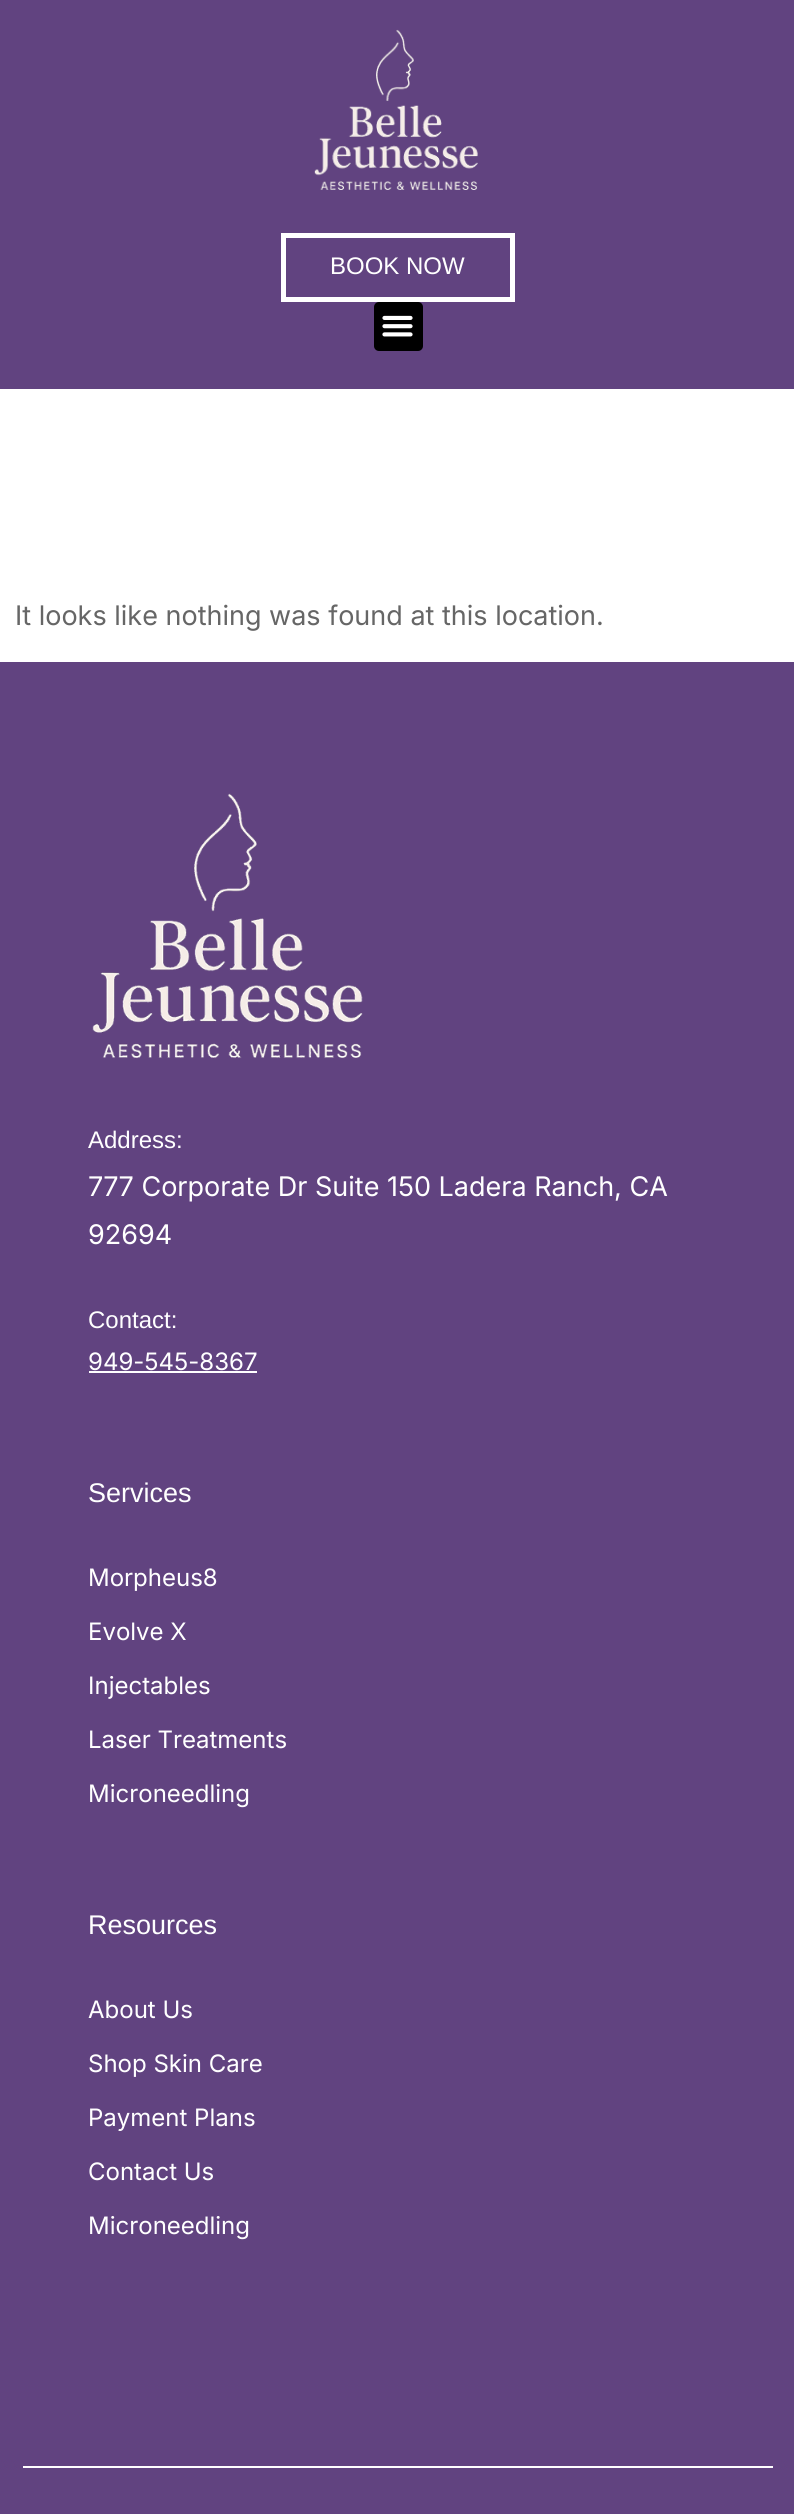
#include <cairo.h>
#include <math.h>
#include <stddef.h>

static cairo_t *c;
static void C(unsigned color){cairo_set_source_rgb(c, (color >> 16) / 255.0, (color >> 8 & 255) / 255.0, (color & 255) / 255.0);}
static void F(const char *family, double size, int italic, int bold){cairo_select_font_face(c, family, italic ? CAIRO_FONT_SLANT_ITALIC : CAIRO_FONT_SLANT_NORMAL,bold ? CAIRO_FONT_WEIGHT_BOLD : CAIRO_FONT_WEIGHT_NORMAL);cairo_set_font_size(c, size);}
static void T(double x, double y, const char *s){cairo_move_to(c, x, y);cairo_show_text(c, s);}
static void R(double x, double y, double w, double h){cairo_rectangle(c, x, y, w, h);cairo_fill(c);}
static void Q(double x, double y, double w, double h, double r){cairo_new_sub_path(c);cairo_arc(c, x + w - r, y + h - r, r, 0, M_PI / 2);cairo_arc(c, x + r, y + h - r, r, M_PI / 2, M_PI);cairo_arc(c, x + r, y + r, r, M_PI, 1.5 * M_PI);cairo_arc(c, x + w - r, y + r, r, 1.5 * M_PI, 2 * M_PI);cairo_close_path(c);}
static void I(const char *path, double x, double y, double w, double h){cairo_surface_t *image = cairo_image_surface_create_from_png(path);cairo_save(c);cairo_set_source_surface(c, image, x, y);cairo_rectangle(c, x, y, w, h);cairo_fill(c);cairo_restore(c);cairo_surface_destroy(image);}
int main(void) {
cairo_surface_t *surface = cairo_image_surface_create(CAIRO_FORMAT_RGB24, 794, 2514);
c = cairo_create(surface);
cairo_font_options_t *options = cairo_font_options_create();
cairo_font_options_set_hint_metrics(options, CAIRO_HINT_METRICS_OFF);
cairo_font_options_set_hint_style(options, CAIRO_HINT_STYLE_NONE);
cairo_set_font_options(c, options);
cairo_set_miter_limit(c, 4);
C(0xffffff);
cairo_paint(c);
C(0x614380);
R(0,0,794,389);
I("1.png",314,29,164,161);
cairo_rectangle(c,283.5,235.5,229,64);
C(0xffffff);
cairo_set_line_width(c,5);
cairo_stroke(c);
F("Liberation Sans",24,0,0);
T(330,274,"BOOK NOW");
C(0x000000);
Q(374,302,49,49,5);
cairo_fill(c);
I("2.png",382,315,31,22);
F("Inter",27,0,0);
C(0x666666);
T(15,625,"It looks like nothing was found at this location.");
C(0x614380);
R(0,662,794,1852);
I("3.png",92,793,271,266);
F("Liberation Sans",24,0,0);
C(0xffffff);
T(88,1148,"Address:");
F("Inter",27,0,0);
T(88,1196,"777 Corporate Dr Suite 150 Ladera Ranch, CA");
T(88,1244,"92694");
F("Liberation Sans",24,0,0);
T(88,1328,"Contact:");
F("Inter",24,0,0);
T(88,1370,"949-545-8367");
R(89,1371,168,2);
F("Liberation Sans",27,0,0);
T(88,1502,"Services");
F("Inter",24,0,0);
T(88,1586,"Morpheus8");
T(88,1640,"Evolve X");
T(88,1694,"Injectables");
T(88,1748,"Laser Treatments");
T(88,1802,"Microneedling");
F("Liberation Sans",27,0,0);
T(88,1934,"Resources");
F("Inter",24,0,0);
T(88,2018,"About Us");
T(88,2072,"Shop Skin Care");
T(88,2126,"Payment Plans");
T(88,2180,"Contact Us");
T(88,2234,"Microneedling");
R(23,2466,750,2);
cairo_surface_write_to_png(surface, "o.png");
cairo_font_options_destroy(options);
cairo_destroy(c);
cairo_surface_destroy(surface);
return 0;
}
